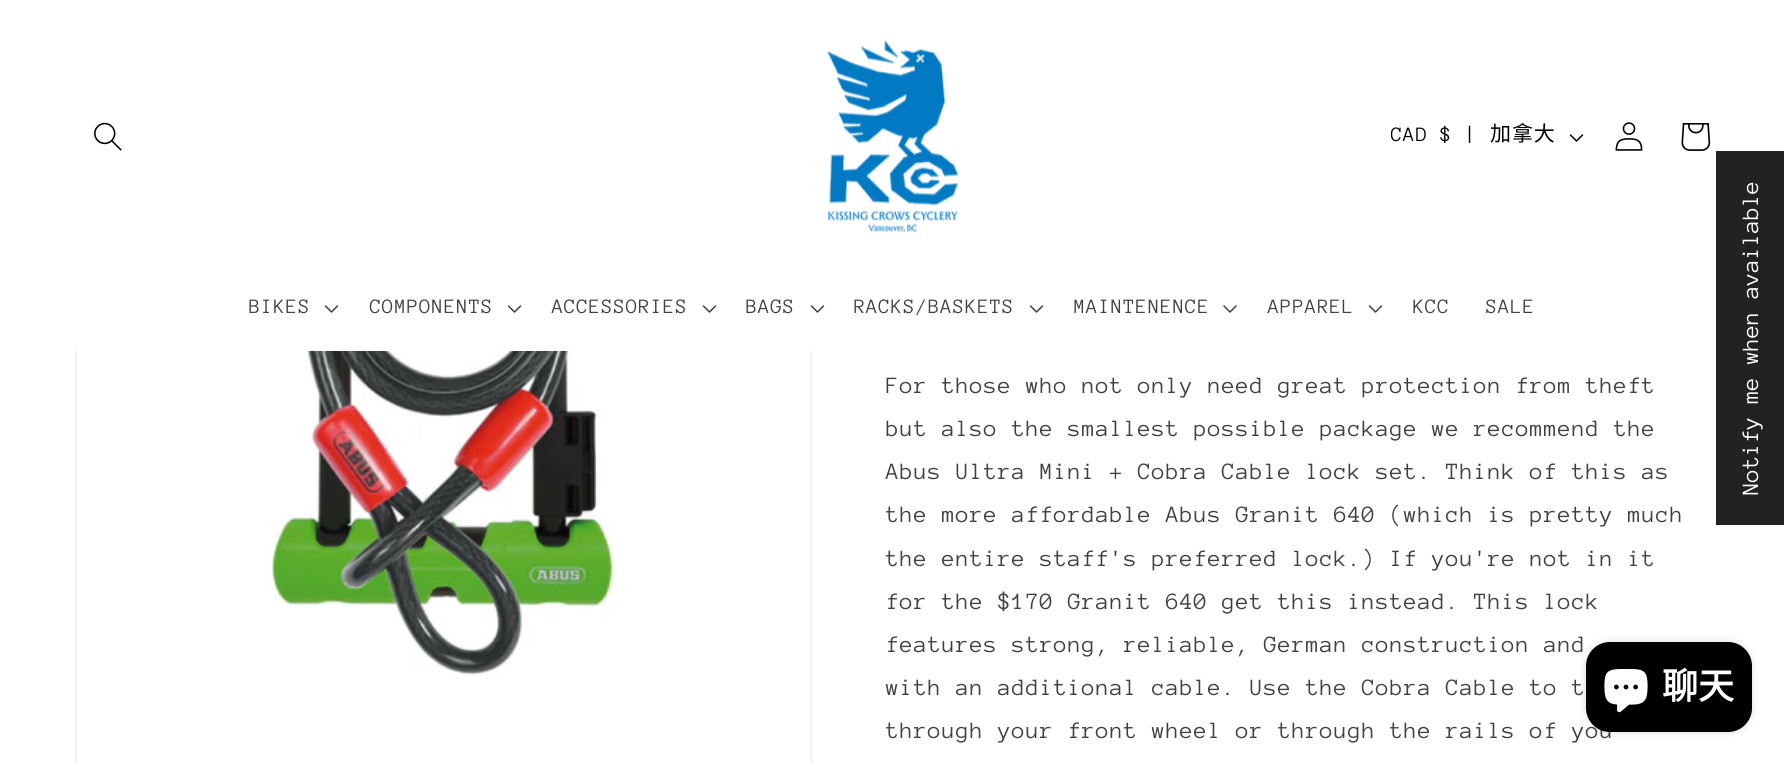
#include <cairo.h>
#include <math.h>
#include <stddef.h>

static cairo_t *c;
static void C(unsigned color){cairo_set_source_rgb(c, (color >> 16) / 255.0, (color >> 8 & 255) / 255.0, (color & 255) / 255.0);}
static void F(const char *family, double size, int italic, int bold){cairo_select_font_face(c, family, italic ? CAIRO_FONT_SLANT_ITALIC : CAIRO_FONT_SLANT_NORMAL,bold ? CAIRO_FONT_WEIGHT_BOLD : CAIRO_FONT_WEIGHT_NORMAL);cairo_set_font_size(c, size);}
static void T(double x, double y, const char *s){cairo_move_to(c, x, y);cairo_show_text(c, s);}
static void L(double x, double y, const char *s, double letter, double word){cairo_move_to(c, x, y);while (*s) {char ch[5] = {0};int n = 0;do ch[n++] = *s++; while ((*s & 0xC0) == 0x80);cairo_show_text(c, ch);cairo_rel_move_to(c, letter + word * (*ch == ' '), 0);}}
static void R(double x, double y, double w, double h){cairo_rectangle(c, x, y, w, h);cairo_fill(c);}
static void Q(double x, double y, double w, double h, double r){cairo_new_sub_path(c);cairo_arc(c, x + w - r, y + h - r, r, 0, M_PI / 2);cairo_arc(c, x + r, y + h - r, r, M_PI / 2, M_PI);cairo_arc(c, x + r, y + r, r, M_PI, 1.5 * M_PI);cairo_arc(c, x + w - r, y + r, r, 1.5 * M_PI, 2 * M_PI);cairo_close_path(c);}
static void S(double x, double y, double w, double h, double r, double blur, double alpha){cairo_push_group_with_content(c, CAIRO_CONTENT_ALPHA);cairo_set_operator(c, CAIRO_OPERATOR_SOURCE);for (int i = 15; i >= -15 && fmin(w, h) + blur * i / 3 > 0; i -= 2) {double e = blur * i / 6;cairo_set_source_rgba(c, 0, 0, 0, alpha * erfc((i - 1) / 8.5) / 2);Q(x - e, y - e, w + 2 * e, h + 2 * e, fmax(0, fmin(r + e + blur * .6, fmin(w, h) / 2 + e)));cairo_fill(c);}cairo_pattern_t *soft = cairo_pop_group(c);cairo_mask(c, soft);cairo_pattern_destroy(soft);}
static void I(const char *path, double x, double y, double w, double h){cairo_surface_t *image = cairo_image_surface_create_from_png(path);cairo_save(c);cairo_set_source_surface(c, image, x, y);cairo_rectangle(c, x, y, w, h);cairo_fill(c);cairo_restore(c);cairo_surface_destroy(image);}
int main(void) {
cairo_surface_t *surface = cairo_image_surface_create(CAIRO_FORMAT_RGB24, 1784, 763);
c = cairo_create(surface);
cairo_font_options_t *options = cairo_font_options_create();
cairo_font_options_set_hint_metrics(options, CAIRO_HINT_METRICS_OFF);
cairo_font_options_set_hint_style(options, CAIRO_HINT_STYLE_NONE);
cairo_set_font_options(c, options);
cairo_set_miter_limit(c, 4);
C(0xffffff);
cairo_paint(c);
cairo_rectangle(c,76,46,735,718);
C(0xf2f2f2);
cairo_stroke(c);
C(0xffffff);
R(75,45,737,306);
I("1.png",94,122,28,29);
I("2.png",827,40,131,193);
cairo_save(c);
cairo_rectangle(c,1391,120,165,32);
cairo_clip(c);
F("Anonymous Pro",21,0,0);
C(0x000000);
L(1391,141,"CAD",.9,0);
cairo_restore(c);
F("Anonymous Pro",21,0,0);
C(0x000000);
L(1440,141,"$ |",.9,0);
F("Noto Sans CJK SC",21,0,0);
L(1490,141,"加拿大",.9,0);
I("3.png",1569,134,15,8);
I("4.png",1615,122,28,29);
I("5.png",1681,123,30,28);
F("Anonymous Pro",21,0,0);
C(0x404040);
L(249,313,"BIKES",.9,0);
I("6.png",324,305,15,8);
L(370,313,"COMPONENTS",.9,0);
I("6.png",507,305,15,8);
L(552,313,"ACCESSORIES",.9,0);
I("6.png",702,305,15,8);
L(746,313,"BAGS",.9,0);
I("6.png",810,305,15,8);
L(854,313,"RACKS/BASKETS",.9,0);
I("6.png",1029,305,15,8);
L(1074,313,"MAINTENENCE",.9,0);
I("7.png",1223,305,14,8);
L(1268,313,"APPAREL",.9,0);
I("6.png",1368,305,15,8);
L(1413,313,"KCC",.9,0);
L(1486,313,"SALE",.9,0);
C(0x202223);
R(1716,151,68,374);
F("Anonymous Pro",24,0,0);
C(0xffffff);
cairo_save(c);
cairo_translate(c,1758,495);
cairo_rotate(c,-90 * M_PI / 180);
T(0,0,"Notify me when available");
cairo_restore(c);
I("8.png",271,351,343,326);
C(0x404040);
L(886,393,"For those who not only need great protection from theft",.9,0);
L(886,436,"but also the smallest possible package we recommend the",.9,0);
L(886,479,"Abus Ultra Mini + Cobra Cable lock set. Think of this as",.9,0);
L(886,522,"the more affordable Abus Granit 640 (which is pretty much",.9,0);
L(886,566,"the entire staff's preferred lock.) If you're not in it",.9,0);
L(886,609,"for the $170 Granit 640 get this instead. This lock",.9,0);
L(886,652,"features strong, reliable, German construction and",.9,0);
L(886,695,"with an additional cable. Use the Cobra Cable to t",.9,0);
L(886,738,"through your front wheel or through the rails of you",.9,0);
C(0x000000);
S(1586,642,166,90,24,4,.15);
C(0x000000);
Q(1586,642,166,90,24);
cairo_fill(c);
I("9.png",1604,669,44,44);
F("Noto Sans CJK SC",36,0,1);
C(0xffffff);
T(1662,699,"聊天");
cairo_surface_write_to_png(surface, "o.png");
cairo_font_options_destroy(options);
cairo_destroy(c);
cairo_surface_destroy(surface);
return 0;
}
